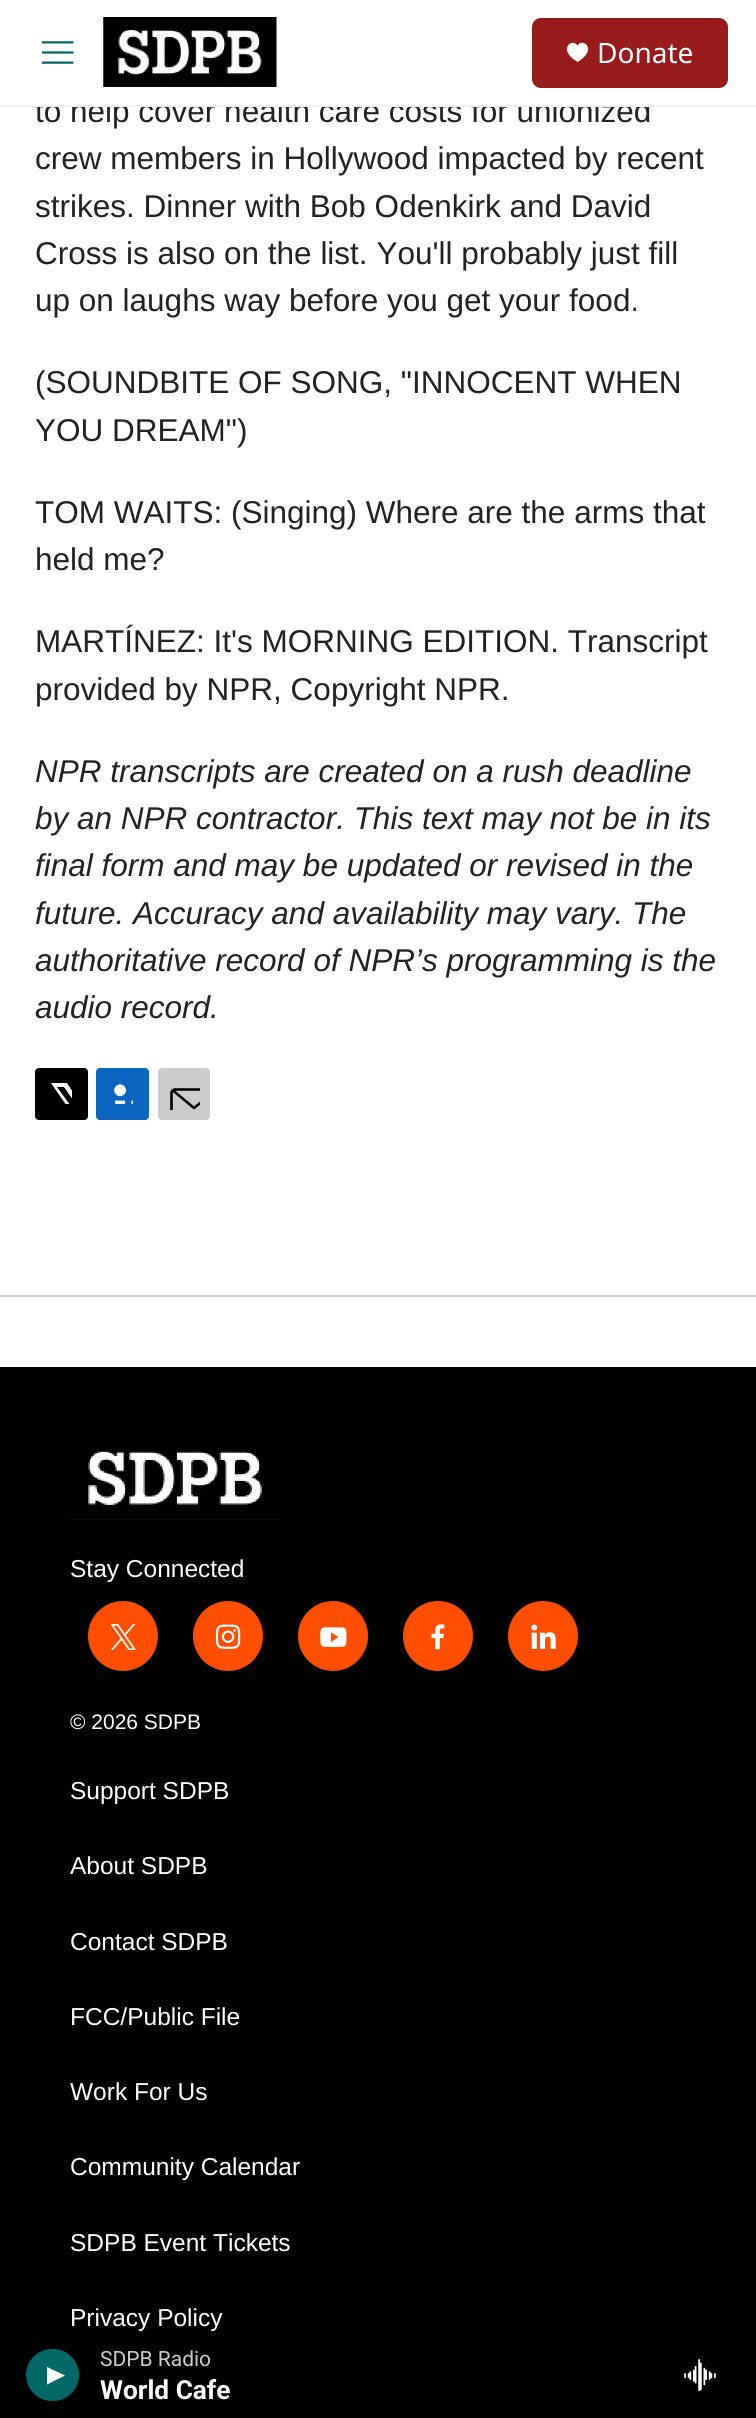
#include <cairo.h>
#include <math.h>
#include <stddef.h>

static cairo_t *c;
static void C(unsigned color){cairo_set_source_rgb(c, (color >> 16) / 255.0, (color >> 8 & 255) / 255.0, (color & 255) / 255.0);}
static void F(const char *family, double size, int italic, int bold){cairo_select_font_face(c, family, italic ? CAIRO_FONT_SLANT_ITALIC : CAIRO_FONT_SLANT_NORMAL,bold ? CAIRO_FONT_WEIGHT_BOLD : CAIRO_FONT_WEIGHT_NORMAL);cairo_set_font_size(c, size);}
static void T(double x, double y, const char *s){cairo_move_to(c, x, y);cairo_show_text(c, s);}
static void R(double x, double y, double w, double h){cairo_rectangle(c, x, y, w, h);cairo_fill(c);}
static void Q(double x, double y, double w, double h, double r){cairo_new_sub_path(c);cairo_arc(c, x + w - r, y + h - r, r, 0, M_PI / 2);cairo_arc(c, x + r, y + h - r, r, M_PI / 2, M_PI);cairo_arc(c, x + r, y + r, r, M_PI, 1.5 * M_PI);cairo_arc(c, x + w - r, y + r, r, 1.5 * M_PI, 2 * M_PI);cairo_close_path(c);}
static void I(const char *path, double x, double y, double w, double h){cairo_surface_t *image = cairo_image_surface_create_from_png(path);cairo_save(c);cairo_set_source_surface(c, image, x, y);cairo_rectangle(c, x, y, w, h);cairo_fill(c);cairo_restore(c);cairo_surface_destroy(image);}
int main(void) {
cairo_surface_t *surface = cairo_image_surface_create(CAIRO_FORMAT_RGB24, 756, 2418);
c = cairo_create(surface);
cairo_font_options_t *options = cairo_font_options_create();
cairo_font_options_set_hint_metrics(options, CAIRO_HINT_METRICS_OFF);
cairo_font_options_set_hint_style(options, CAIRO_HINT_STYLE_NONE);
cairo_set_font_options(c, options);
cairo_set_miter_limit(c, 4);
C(0xffffff);
cairo_paint(c);
F("Liberation Sans",31.5,0,0);
C(0x222222);
T(35,122,"to help cover health care costs for unionized");
C(0xffffff);
R(37,99,613,6);
C(0xf1f1f1);
R(0,105,756,2);
I("1.png",42,41,32,23);
I("2.png",103,17,174,70);
C(0x981b1b);
Q(532,18,196,70,9);
cairo_fill(c);
C(0xffffff);
cairo_new_path(c);
cairo_move_to(c,577.5,46);
cairo_curve_to(c,574,37,555.5,48.5,577.5,62);
cairo_curve_to(c,599.5,48.5,581,37,577.5,46);
cairo_close_path(c);
cairo_fill(c);
F("Noto Sans",28,0,0);
T(597,63,"Donate");
C(0x010101);
R(0,1367,756,964);
F("Liberation Sans",24.5,0,0);
C(0xffffff);
T(70,2326,"Privacy Policy");
C(0x010101);
R(0,2331,756,87);
C(0x006968);
Q(26,2349,53,52,26);
cairo_fill(c);
C(0xffffff);
cairo_new_path(c);
cairo_move_to(c,47,2367);
cairo_line_to(c,65,2375.5);
cairo_line_to(c,47,2384.5);
cairo_close_path(c);
cairo_fill(c);
F("Roboto",21,0,0);
C(0xcccccc);
T(100,2366,"SDPB Radio");
F("Roboto",26.25,0,1);
C(0xffffff);
T(100,2399,"World Cafe");
I("3.png",684,2359,32,32);
F("Liberation Sans",31.5,0,0);
C(0x222222);
T(35,169,"crew members in Hollywood impacted by recent");
T(35,217,"strikes. Dinner with Bob Odenkirk and David");
T(35,264,"Cross is also on the list. You'll probably just fill");
T(35,311,"up on laughs way before you get your food.");
T(35,393,"(SOUNDBITE OF SONG, \"INNOCENT WHEN");
T(35,441,"YOU DREAM\")");
T(35,523,"TOM WAITS: (Singing) Where are the arms that");
T(35,570,"held me?");
T(35,652,"MARTÍNEZ: It's MORNING EDITION. Transcript");
T(35,700,"provided by NPR, Copyright NPR.");
F("Liberation Sans",31.5,1,0);
T(35,782,"NPR transcripts are created on a rush deadline");
T(35,829,"by an NPR contractor. This text may not be in its");
T(35,876,"final form and may be updated or revised in the");
T(35,924,"future. Accuracy and availability may vary. The");
T(35,971,"authoritative record of NPR’s programming is the");
T(35,1018,"audio record.");
C(0x000000);
Q(35,1068,53,52,4);
cairo_fill(c);
cairo_save(c);
cairo_rectangle(c,51,1083,21,21);
cairo_clip(c);
C(0xffffff);
cairo_new_path(c);
cairo_move_to(c,82,1105);
cairo_line_to(c,88,1114);
cairo_curve_to(c,88,1115.5,88,1117.5,86.5,1119);
cairo_line_to(c,64,1087);
cairo_line_to(c,57,1087);
cairo_line_to(c,81,1120);
cairo_line_to(c,76.5,1120);
cairo_line_to(c,73,1115);
cairo_line_to(c,69,1120);
cairo_line_to(c,64.5,1120);
cairo_line_to(c,71,1112);
cairo_line_to(c,51,1083);
cairo_line_to(c,67,1083);
cairo_line_to(c,80,1103);
cairo_line_to(c,88,1093);
cairo_line_to(c,88,1098);
cairo_close_path(c);
cairo_fill(c);
cairo_restore(c);
C(0x0a66c1);
Q(96,1068,53,52,4);
cairo_fill(c);
I("4.png",114,1084,19,20);
C(0xcccccc);
Q(159,1069,50,50,3);
cairo_fill_preserve(c);
cairo_stroke(c);
cairo_save(c);
cairo_rectangle(c,168,1078,32,32);
cairo_clip(c);
cairo_new_path(c);
cairo_move_to(c,217,1116.5);
cairo_curve_to(c,217,1118,215.5,1119.5,213.5,1119.5);
cairo_line_to(c,175,1119.5);
cairo_curve_to(c,173,1119.5,171.5,1118,171.5,1116.5);
cairo_line_to(c,171.5,1093);
cairo_curve_to(c,171.5,1091,173,1089.5,175,1089.5);
cairo_line_to(c,213.5,1089.5);
cairo_curve_to(c,215.5,1089.5,217,1091,217,1093);
cairo_close_path(c);
cairo_move_to(c,215.5,1090.5);
cairo_line_to(c,194,1108);
cairo_line_to(c,173,1090.5);
C(0x000000);
cairo_set_line_width(c,2.6);
cairo_set_line_cap(c,CAIRO_LINE_CAP_ROUND);
cairo_set_line_join(c,CAIRO_LINE_JOIN_ROUND);
cairo_stroke(c);
cairo_restore(c);
R(0,1295,756,2);
I("5.png",70,1449,210,71);
F("Liberation Sans",24.5,0,0);
C(0xffffff);
T(70,1577,"Stay Connected");
C(0xff4e00);
cairo_new_path(c);
cairo_arc(c,123,1636,35,0,2 * M_PI);
cairo_fill(c);
I("6.png",110,1624,26,26);
cairo_arc(c,228,1636,35,0,2 * M_PI);
cairo_fill(c);
I("7.png",215,1624,26,25);
cairo_arc(c,333,1636,35,0,2 * M_PI);
cairo_fill(c);
I("8.png",320,1627,27,20);
cairo_arc(c,438,1636,35,0,2 * M_PI);
cairo_fill(c);
I("9.png",431,1624,14,26);
cairo_arc(c,543,1636,35,0,2 * M_PI);
cairo_fill(c);
I("10.png",531,1624,25,25);
F("Liberation Sans",21,0,0);
C(0xffffff);
T(70,1729,"© 2026 SDPB");
F("Liberation Sans",24.5,0,0);
T(70,1799,"Support SDPB");
T(70,1874,"About SDPB");
T(70,1950,"Contact SDPB");
T(70,2025,"FCC/Public File");
T(70,2100,"Work For Us");
T(70,2175,"Community Calendar");
T(70,2251,"SDPB Event Tickets");
cairo_surface_write_to_png(surface, "o.png");
cairo_font_options_destroy(options);
cairo_destroy(c);
cairo_surface_destroy(surface);
return 0;
}
